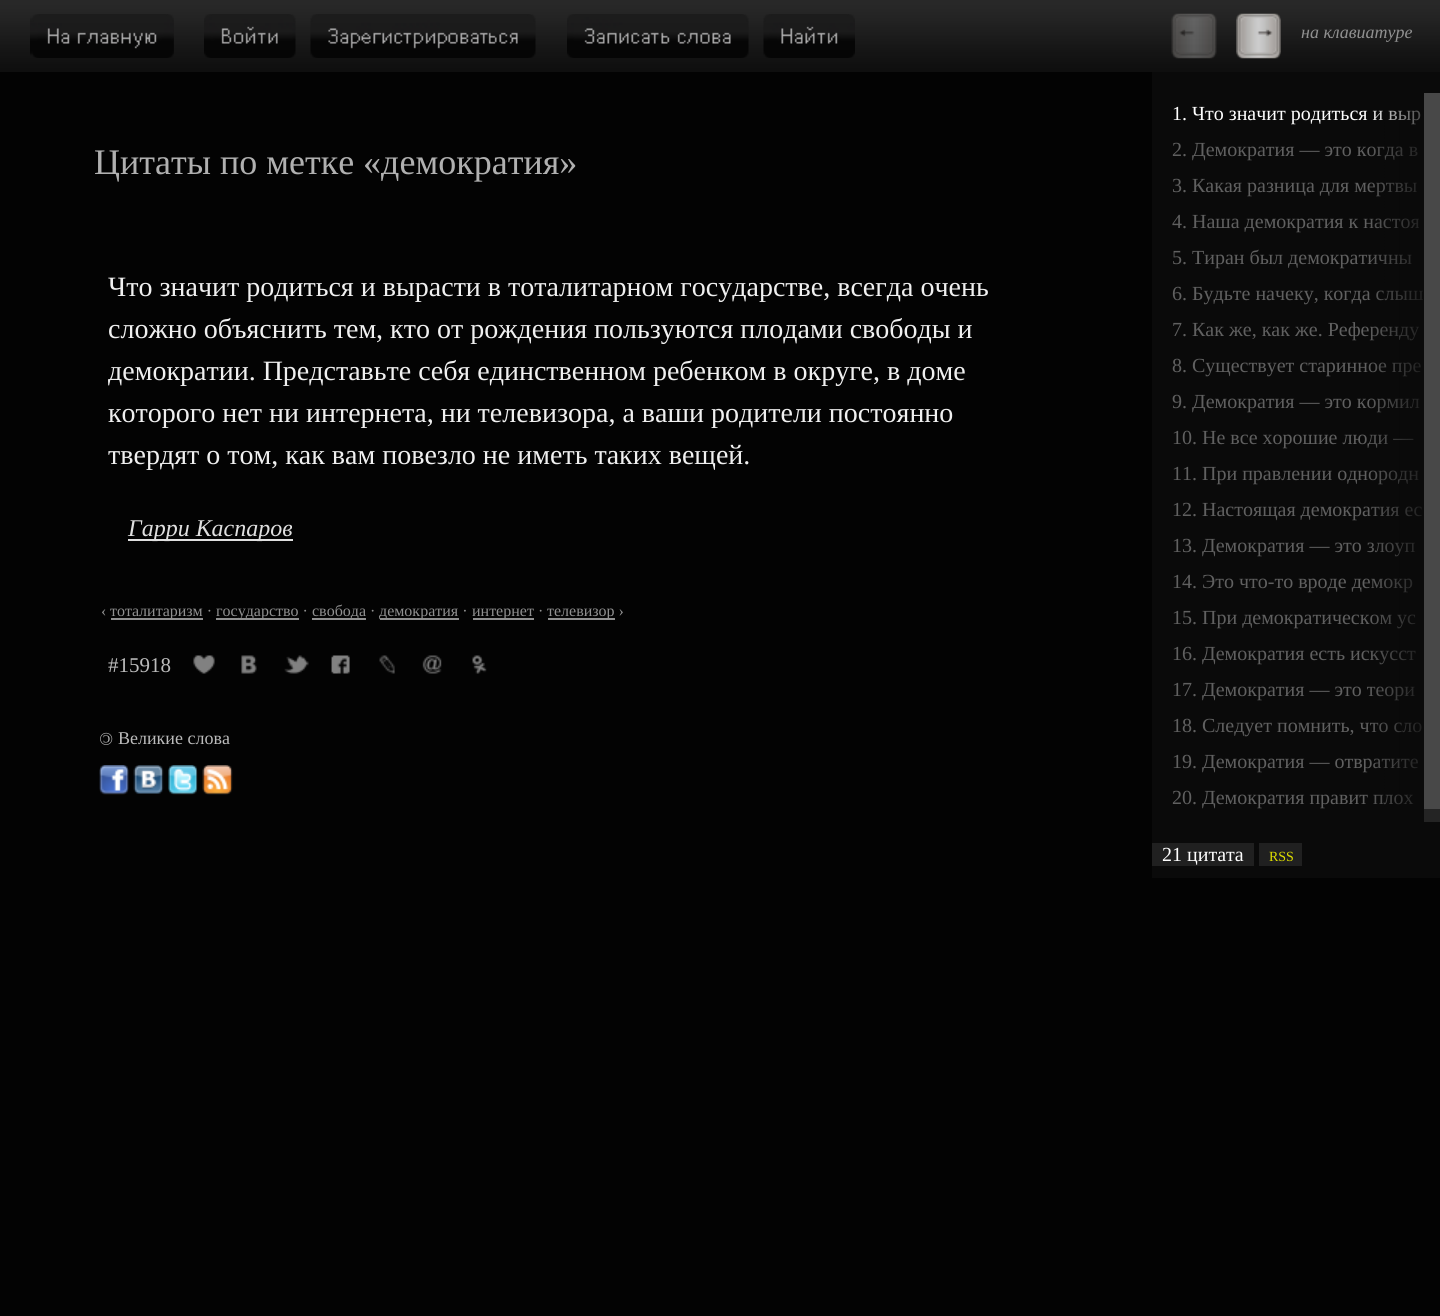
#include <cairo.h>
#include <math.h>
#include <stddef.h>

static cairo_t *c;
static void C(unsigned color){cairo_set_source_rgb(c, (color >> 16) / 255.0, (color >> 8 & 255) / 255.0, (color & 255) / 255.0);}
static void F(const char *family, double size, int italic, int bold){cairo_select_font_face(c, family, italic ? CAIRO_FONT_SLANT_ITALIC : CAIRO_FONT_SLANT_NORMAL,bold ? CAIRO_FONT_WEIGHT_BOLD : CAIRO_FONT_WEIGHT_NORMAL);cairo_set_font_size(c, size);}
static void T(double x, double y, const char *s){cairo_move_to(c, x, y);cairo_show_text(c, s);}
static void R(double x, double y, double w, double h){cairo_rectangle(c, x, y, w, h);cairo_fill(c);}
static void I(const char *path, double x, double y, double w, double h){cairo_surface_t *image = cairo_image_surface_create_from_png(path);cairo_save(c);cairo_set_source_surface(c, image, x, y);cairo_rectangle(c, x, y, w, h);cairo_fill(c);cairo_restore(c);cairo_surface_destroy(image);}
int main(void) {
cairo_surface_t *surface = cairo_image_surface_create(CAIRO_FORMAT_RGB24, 1440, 1316);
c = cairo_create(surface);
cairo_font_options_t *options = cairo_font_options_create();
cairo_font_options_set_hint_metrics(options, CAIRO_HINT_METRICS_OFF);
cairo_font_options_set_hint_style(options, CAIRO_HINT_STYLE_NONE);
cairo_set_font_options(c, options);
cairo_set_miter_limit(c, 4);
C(0x030303);
cairo_paint(c);
I("1.png",0,0,1440,72);
I("2.png",30,14,144,44);
I("3.png",204,14,92,44);
I("4.png",310,14,226,44);
I("5.png",567,14,182,44);
I("6.png",763,14,92,44);
I("7.png",1171,13,46,46);
I("8.png",1236,13,45,46);
F("Liberation Serif",18,1,0);
C(0x909090);
T(1301,38,"на клавиатуре");
F("Liberation Serif",36,0,0);
C(0xb0b0b0);
T(94,174,"Цитаты по метке «демократия»");
C(0x0a0a0a);
R(1152,72,288,21);
R(1152,93,272,729);
F("Liberation Serif",20,0,0);
C(0xffffff);
T(1172,120,"1. Что значит родиться и выр");
C(0x606060);
T(1172,156,"2. Демократия — это когда в");
T(1172,192,"3. Какая разница для мертвы");
T(1172,228,"4. Наша демократия к настоя");
T(1172,264,"5. Тиран был демократичны");
T(1172,300,"6. Будьте начеку, когда слыш");
T(1172,336,"7. Как же, как же. Референду");
T(1172,372,"8. Существует старинное пре");
T(1172,408,"9. Демократия — это кормил");
T(1172,444,"10. Не все хорошие люди —");
T(1172,480,"11. При правлении однородн");
T(1172,516,"12. Настоящая демократия ес");
T(1172,552,"13. Демократия — это злоуп");
T(1172,588,"14. Это что-то вроде демокр");
T(1172,624,"15. При демократическом ус");
T(1172,660,"16. Демократия есть искусст");
T(1172,696,"17. Демократия — это теори");
T(1172,732,"18. Следует помнить, что сло");
T(1172,768,"19. Демократия — отвратите");
T(1172,804,"20. Демократия правит плох");
C(0x242424);
R(1424,809,16,13);
C(0x484848);
R(1424,93,16,716);
I("9.png",1366,110,58,697);
C(0x0a0a0a);
R(1152,822,288,56);
C(0x202020);
R(1152,843,102,23);
C(0xffffff);
T(1162,861,"21 цитата");
C(0x202020);
R(1259,843,43,23);
F("Liberation Serif",14,0,0);
C(0xdddd00);
T(1269,861,"RSS");
F("Liberation Serif",28,0,0);
C(0xf0f0f0);
T(108,296,"Что значит родиться и вырасти в тоталитарном государстве, всегда очень");
T(108,338,"сложно объяснить тем, кто от рождения пользуются плодами свободы и");
T(108,380,"демократии. Представьте себя единственном ребенком в округе, в доме");
T(108,422,"которого нет ни интернета, ни телевизора, а ваши родители постоянно");
T(108,464,"твердят о том, как вам повезло не иметь таких вещей.");
C(0xe0e0e0);
R(128,539,165,2);
F("Liberation Serif",24,1,0);
T(128,536,"Гарри Каспаров");
F("Liberation Serif",16,0,0);
C(0x909090);
T(101,616,"‹");
R(111,618,92,2);
T(110,616,"тоталитаризм ·");
R(216,618,83,2);
T(216,616,"государство ·");
R(312,618,54,2);
T(312,616,"свобода ·");
R(380,618,79,2);
T(379,616,"демократия ·");
R(473,618,61,2);
T(472,616,"интернет ·");
R(548,618,67,2);
T(547,616,"телевизор ›");
F("Liberation Serif",21,0,0);
C(0xbbbbbb);
T(108,672,"#15918");
I("10.png",193,655,22,19);
I("11.png",241,655,16,19);
I("12.png",284,655,25,19);
I("13.png",331,655,19,19);
I("14.png",379,655,16,19);
I("15.png",422,655,20,19);
I("16.png",472,655,15,19);
F("Liberation Serif",18,0,0);
cairo_save(c);
cairo_translate(c,113,733);
cairo_rotate(c,180 * M_PI / 180);
T(0,0,"©");
cairo_restore(c);
T(118,744,"Великие слова");
I("17.png",99,765,30,30);
I("18.png",133,765,31,29);
I("19.png",168,765,30,30);
I("20.png",202,765,31,30);
cairo_surface_write_to_png(surface, "o.png");
cairo_font_options_destroy(options);
cairo_destroy(c);
cairo_surface_destroy(surface);
return 0;
}
